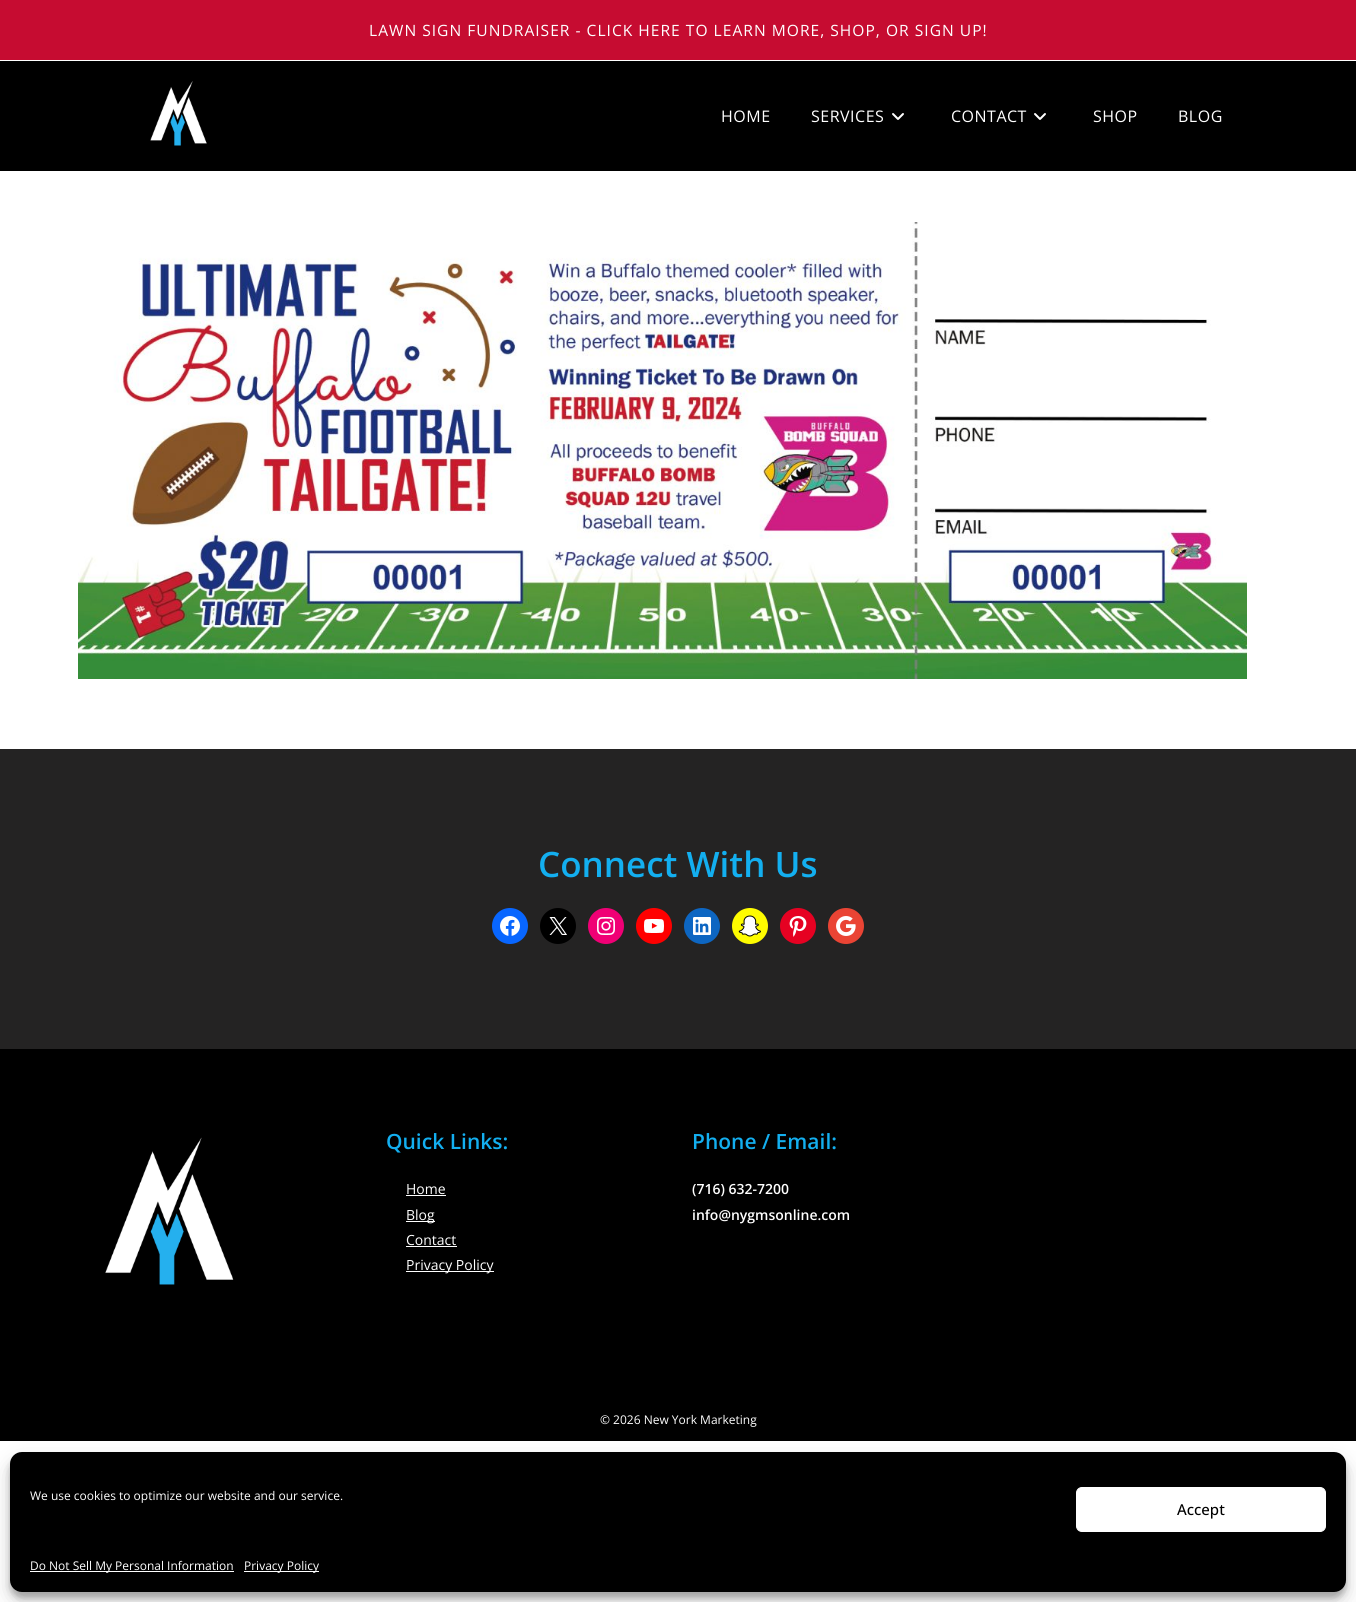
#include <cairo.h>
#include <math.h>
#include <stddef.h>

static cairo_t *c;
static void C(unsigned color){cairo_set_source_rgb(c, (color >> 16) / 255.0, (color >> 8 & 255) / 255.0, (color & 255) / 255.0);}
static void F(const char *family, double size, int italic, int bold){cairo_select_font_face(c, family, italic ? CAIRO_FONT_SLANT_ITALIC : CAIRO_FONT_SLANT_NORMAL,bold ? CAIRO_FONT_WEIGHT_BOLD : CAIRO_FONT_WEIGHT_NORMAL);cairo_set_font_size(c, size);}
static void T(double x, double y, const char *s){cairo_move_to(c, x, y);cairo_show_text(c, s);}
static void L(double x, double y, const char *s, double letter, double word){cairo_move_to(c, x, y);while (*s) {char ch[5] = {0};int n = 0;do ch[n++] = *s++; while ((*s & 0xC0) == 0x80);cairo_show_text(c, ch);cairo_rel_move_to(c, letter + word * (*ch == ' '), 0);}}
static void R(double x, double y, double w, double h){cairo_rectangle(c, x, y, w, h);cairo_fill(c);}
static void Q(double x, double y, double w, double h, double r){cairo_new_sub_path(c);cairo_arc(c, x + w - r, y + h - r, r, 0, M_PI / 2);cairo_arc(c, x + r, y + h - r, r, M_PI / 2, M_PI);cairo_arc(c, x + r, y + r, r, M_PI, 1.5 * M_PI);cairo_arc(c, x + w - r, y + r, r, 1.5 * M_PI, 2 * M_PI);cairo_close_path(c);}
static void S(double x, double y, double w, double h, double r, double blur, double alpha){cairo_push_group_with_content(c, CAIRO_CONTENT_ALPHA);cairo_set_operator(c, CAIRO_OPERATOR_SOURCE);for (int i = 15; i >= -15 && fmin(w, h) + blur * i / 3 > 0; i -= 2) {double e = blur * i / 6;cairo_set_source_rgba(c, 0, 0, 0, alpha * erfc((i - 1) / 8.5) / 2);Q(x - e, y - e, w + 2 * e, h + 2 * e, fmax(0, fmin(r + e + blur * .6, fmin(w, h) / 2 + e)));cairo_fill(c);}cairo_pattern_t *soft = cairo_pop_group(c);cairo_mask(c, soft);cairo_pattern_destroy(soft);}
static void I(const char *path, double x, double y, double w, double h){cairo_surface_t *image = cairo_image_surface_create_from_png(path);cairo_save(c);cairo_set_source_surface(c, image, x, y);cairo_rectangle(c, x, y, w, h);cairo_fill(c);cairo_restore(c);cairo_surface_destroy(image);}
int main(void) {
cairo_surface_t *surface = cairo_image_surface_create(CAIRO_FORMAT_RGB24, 1356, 1602);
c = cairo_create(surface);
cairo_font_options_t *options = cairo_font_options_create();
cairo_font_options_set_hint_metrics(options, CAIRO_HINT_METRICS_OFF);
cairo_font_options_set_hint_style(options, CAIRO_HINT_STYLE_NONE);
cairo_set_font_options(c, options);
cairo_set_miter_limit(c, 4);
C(0xffffff);
cairo_paint(c);
C(0xc60c31);
R(0,0,1356,60);
F("Open Sans",15.6,0,0);
C(0xffffff);
L(369,36,"LAWN SIGN FUNDRAISER - CLICK HERE TO LEARN MORE, SHOP, OR SIGN UP!",1,0);
C(0x000000);
R(0,61,1356,110);
I("1.png",150,81,57,65);
F("Open Sans",16,0,0);
C(0xffffff);
L(721,122,"HOME",.5,0);
L(811,122,"SERVICES",.5,0);
I("2.png",892,113,12,7);
L(951,122,"CONTACT",.5,0);
I("2.png",1034,113,12,7);
L(1093,122,"SHOP",.5,0);
L(1178,122,"BLOG",.5,0);
I("3.png",78,222,1169,457);
C(0x242323);
R(0,749,1356,300);
F("Open Sans SemiBold",35,0,0);
C(0x13aff0);
T(538,877,"Connect With Us");
C(0x0866ff);
cairo_new_path(c);
cairo_arc(c,510,926,18,0,2 * M_PI);
cairo_fill(c);
I("4.png",500,916,20,20);
C(0x000000);
cairo_arc(c,558,926,18,0,2 * M_PI);
cairo_fill(c);
I("5.png",549,917,18,18);
C(0xf00075);
cairo_arc(c,606,926,18,0,2 * M_PI);
cairo_fill(c);
I("6.png",597,917,18,18);
C(0xff0000);
cairo_arc(c,654,926,18,0,2 * M_PI);
cairo_fill(c);
I("7.png",644,919,20,14);
C(0x0d66c2);
cairo_arc(c,702,926,18,0,2 * M_PI);
cairo_fill(c);
I("8.png",693,917,18,18);
C(0xfefc00);
cairo_arc(c,750,926,18,0,2 * M_PI);
cairo_fill(c);
I("9.png",738,915,23,22);
C(0xe60122);
cairo_arc(c,798,926,18,0,2 * M_PI);
cairo_fill(c);
I("10.png",789,916,18,21);
C(0xea4434);
cairo_arc(c,846,926,18,0,2 * M_PI);
cairo_fill(c);
I("11.png",836,916,20,20);
C(0x000000);
R(0,1049,1356,392);
I("12.png",105,1137,129,148);
F("Open Sans SemiBold",21,0,0);
C(0x13aff0);
T(386,1149,"Quick Links:");
F("Open Sans",14,0,0);
C(0xffffff);
T(406,1194,"Home");
R(406,1195,40,1);
R(406,1221,29,1);
T(406,1220,"Blog");
T(406,1245,"Contact");
R(406,1246,51,1);
R(406,1271,88,1);
T(406,1270,"Privacy Policy");
F("Open Sans SemiBold",21,0,0);
C(0x13aff0);
T(692,1149,"Phone / Email:");
F("Open Sans SemiBold",14,0,0);
C(0xffffff);
T(692,1194,"(716) 632-7200");
T(692,1220,"info@nygmsonline.com");
F("Open Sans",12,0,0);
T(600,1424,"© 2026 New York Marketing");
C(0x000000);
S(10,1458,1336,140,12,3,.23);
S(10,1462,1336,140,12,10,.19);
C(0x000000);
Q(10,1452,1336,140,12);
cairo_fill(c);
C(0xffffff);
T(30,1500,"We use cookies to optimize our website and our service.");
Q(1076.5,1487.5,249,44,5.5);
cairo_fill_preserve(c);
cairo_set_line_width(c,1);
cairo_stroke(c);
F("Open Sans Medium",15,0,0);
C(0x000000);
T(1177,1515,"Accept");
C(0xffffff);
R(30,1571,204,1);
F("Open Sans",12,0,0);
T(30,1570,"Do Not Sell My Personal Information");
R(244,1571,75,1);
T(244,1570,"Privacy Policy");
cairo_surface_write_to_png(surface, "o.png");
cairo_font_options_destroy(options);
cairo_destroy(c);
cairo_surface_destroy(surface);
return 0;
}
